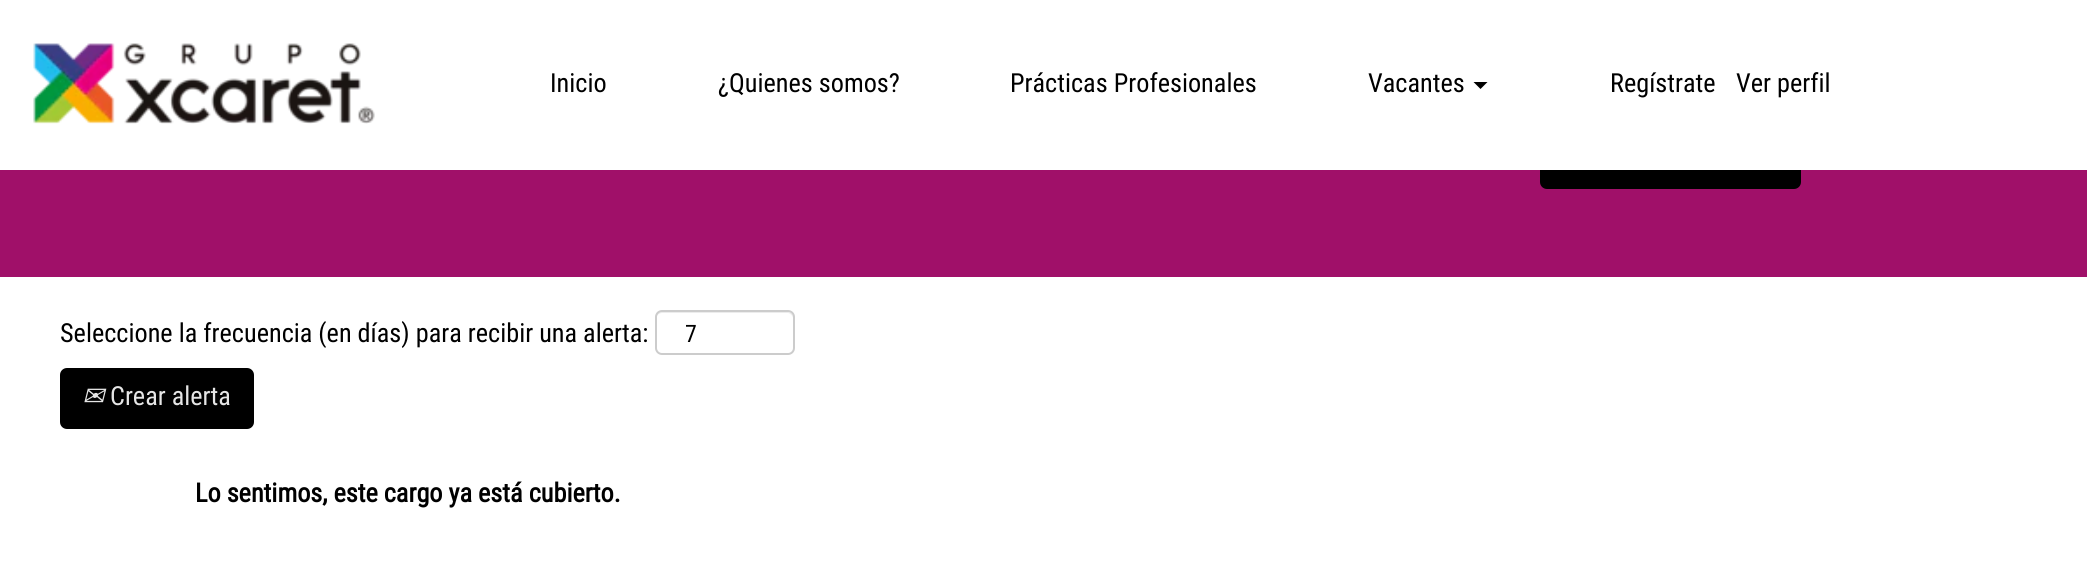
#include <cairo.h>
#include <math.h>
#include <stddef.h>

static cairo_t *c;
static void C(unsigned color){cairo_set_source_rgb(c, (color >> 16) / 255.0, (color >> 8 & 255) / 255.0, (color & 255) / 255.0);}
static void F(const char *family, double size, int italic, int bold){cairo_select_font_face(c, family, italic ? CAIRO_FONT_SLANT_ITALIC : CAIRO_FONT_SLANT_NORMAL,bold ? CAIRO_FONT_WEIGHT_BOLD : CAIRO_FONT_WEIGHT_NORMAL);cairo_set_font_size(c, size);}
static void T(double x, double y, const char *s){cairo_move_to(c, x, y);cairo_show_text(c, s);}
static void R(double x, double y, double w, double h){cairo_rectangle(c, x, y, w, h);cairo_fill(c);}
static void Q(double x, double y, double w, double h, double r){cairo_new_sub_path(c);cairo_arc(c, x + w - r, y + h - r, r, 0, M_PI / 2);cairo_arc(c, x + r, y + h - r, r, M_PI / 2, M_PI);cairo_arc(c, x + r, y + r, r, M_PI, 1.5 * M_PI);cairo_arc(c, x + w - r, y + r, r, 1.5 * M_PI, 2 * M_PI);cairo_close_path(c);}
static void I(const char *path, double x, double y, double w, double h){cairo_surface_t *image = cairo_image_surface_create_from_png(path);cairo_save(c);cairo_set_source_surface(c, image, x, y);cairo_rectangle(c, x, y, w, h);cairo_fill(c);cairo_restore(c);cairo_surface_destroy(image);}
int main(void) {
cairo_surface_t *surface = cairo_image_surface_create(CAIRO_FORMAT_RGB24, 2087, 561);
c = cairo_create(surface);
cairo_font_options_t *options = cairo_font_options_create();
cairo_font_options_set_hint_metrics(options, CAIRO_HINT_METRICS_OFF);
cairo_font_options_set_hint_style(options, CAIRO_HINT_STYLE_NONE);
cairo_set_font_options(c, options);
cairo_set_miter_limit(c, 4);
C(0xffffff);
cairo_paint(c);
I("1.png",33,43,342,81);
C(0xa01069);
R(0,170,2087,107);
C(0x000000);
Q(1540,89,261,100,7);
cairo_fill(c);
C(0xffffff);
R(1540,89,261,81);
F("Roboto Condensed",26.25,0,0);
C(0x000000);
T(550,92,"Inicio");
T(718,92,"¿Quienes somos?");
T(1010,92,"Prácticas Profesionales");
T(1368,92,"Vacantes");
cairo_new_path(c);
cairo_move_to(c,1473.5,82);
cairo_line_to(c,1487.5,82);
cairo_line_to(c,1480.5,89);
cairo_close_path(c);
cairo_fill(c);
T(1610,92,"Regístrate");
T(1736,92,"Ver perfil");
T(60,342,"Seleccione la frecuencia (en días) para recibir una alerta:");
C(0xececec);
cairo_new_path(c);
cairo_move_to(c,662,313);
cairo_line_to(c,788,313);
cairo_curve_to(c,790,313,793,316,793,318);
cairo_line_to(c,793,317);
cairo_curve_to(c,793,314,791,312,788,312);
cairo_line_to(c,661,312);
cairo_curve_to(c,658,312,656,314,656,317);
cairo_line_to(c,656,318);
cairo_curve_to(c,656,316,659,313,662,313);
cairo_close_path(c);
cairo_fill(c);
Q(656,311,138,43,6);
C(0xcccccc);
cairo_stroke(c);
F("Roboto Condensed",24,0,0);
C(0x000000);
T(685,342,"7");
Q(60,368,194,61,7);
cairo_fill(c);
F("DejaVu Sans",26.25,1,0);
C(0xe5e5e5);
T(82,405,"✉");
F("Roboto Condensed",26.25,0,0);
T(110,405,"Crear alerta");
F("Roboto Condensed",26.25,0,1);
C(0x000000);
T(195,502,"Lo sentimos, este cargo ya está cubierto.");
cairo_surface_write_to_png(surface, "o.png");
cairo_font_options_destroy(options);
cairo_destroy(c);
cairo_surface_destroy(surface);
return 0;
}
